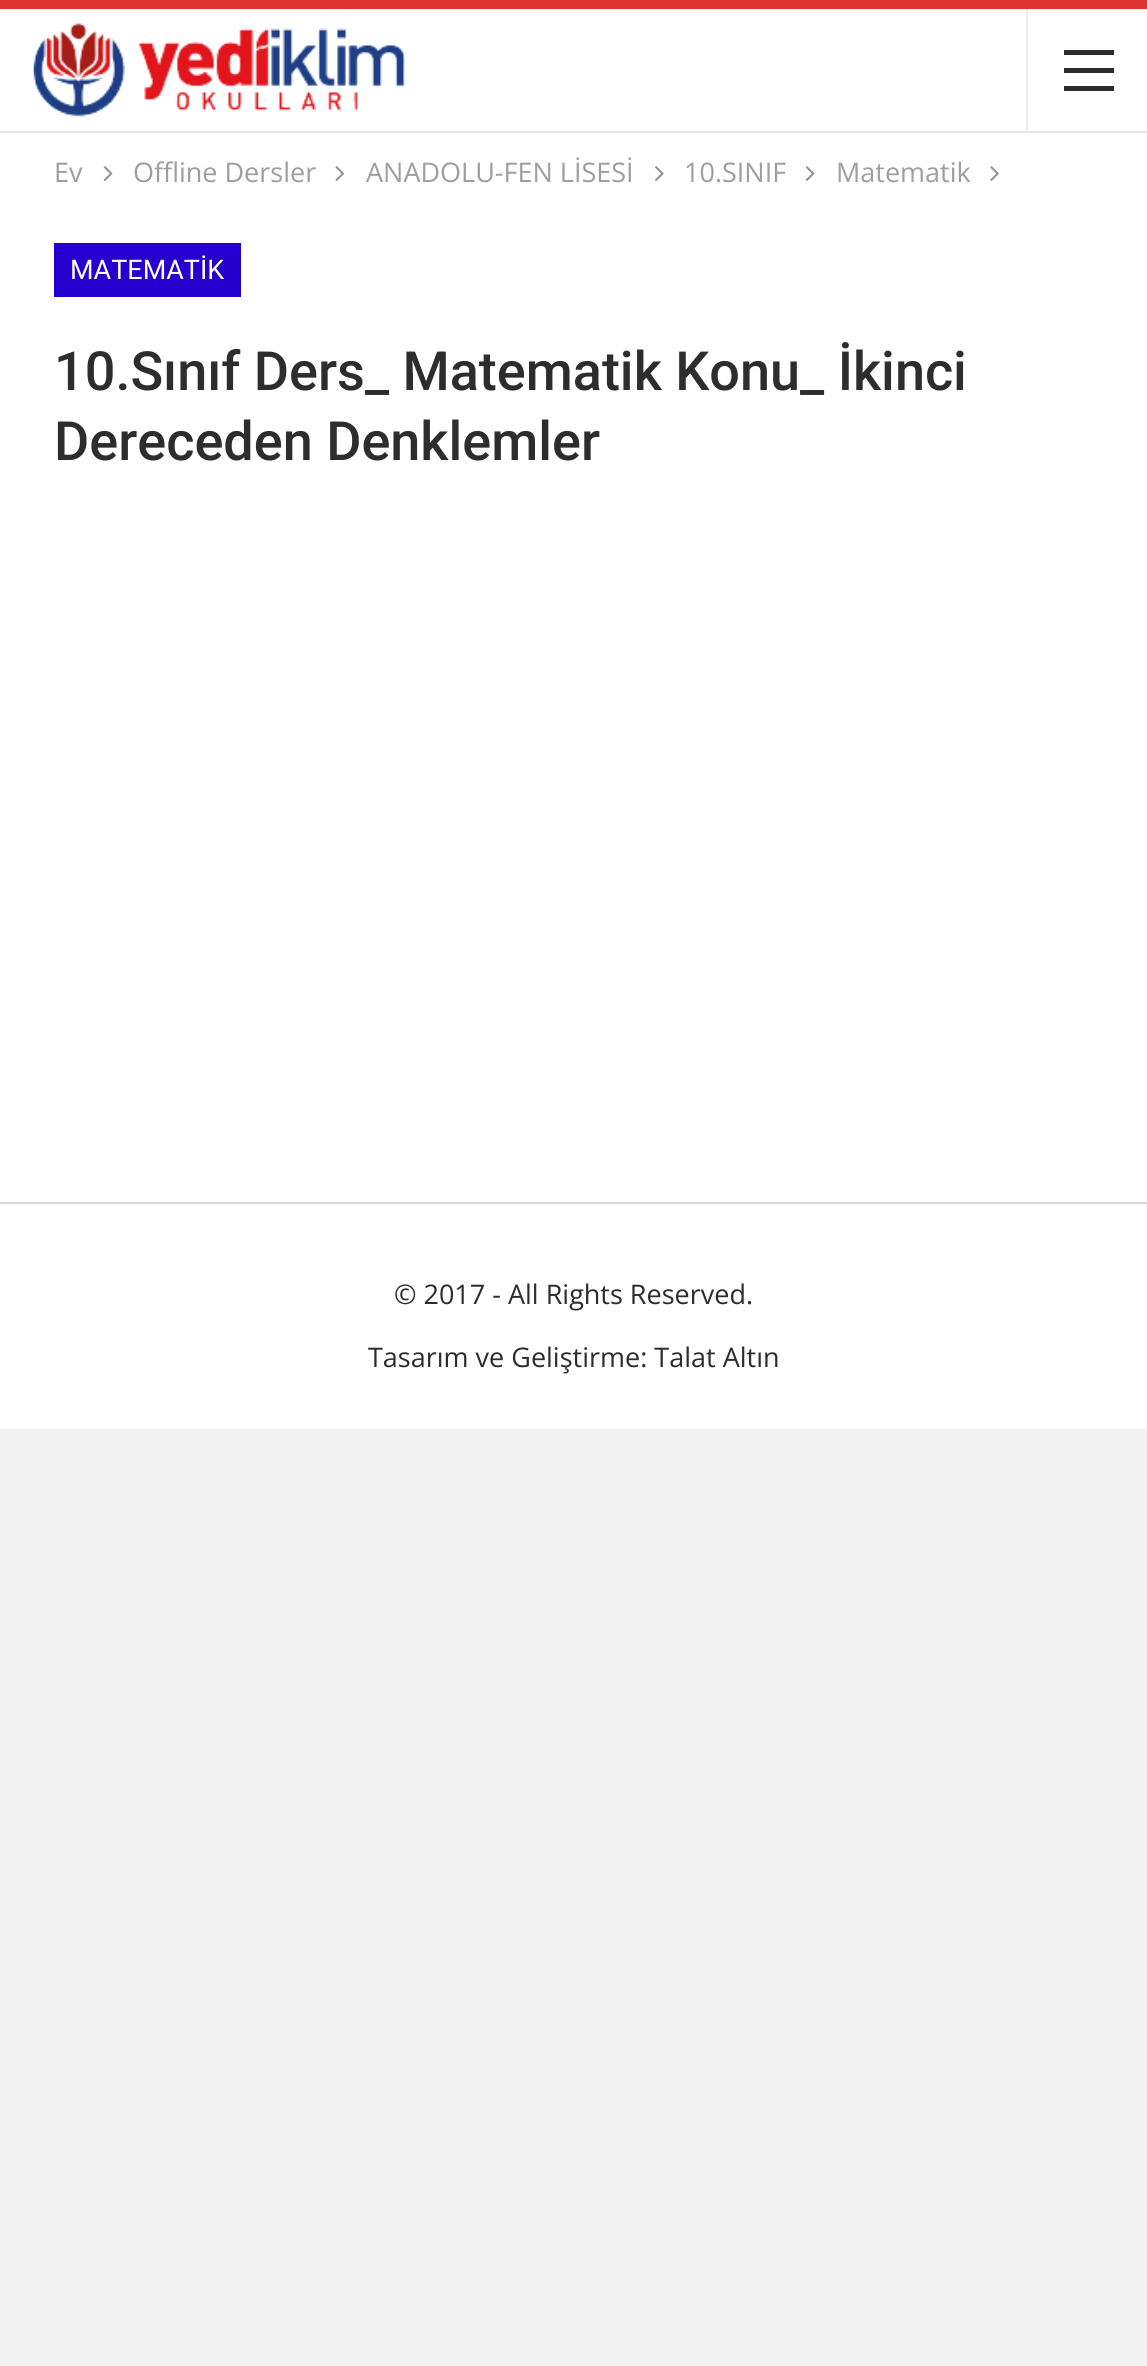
#include <cairo.h>
#include <math.h>
#include <stddef.h>

static cairo_t *c;
static void C(unsigned color){cairo_set_source_rgb(c, (color >> 16) / 255.0, (color >> 8 & 255) / 255.0, (color & 255) / 255.0);}
static void F(const char *family, double size, int italic, int bold){cairo_select_font_face(c, family, italic ? CAIRO_FONT_SLANT_ITALIC : CAIRO_FONT_SLANT_NORMAL,bold ? CAIRO_FONT_WEIGHT_BOLD : CAIRO_FONT_WEIGHT_NORMAL);cairo_set_font_size(c, size);}
static void T(double x, double y, const char *s){cairo_move_to(c, x, y);cairo_show_text(c, s);}
static void R(double x, double y, double w, double h){cairo_rectangle(c, x, y, w, h);cairo_fill(c);}
static void I(const char *path, double x, double y, double w, double h){cairo_surface_t *image = cairo_image_surface_create_from_png(path);cairo_save(c);cairo_set_source_surface(c, image, x, y);cairo_rectangle(c, x, y, w, h);cairo_fill(c);cairo_restore(c);cairo_surface_destroy(image);}
int main(void) {
cairo_surface_t *surface = cairo_image_surface_create(CAIRO_FORMAT_RGB24, 1147, 2366);
c = cairo_create(surface);
cairo_font_options_t *options = cairo_font_options_create();
cairo_font_options_set_hint_metrics(options, CAIRO_HINT_METRICS_OFF);
cairo_font_options_set_hint_style(options, CAIRO_HINT_STYLE_NONE);
cairo_set_font_options(c, options);
cairo_set_miter_limit(c, 4);
C(0xf3f3f3);
cairo_paint(c);
C(0xdd3333);
R(0,0,1147,9);
C(0xffffff);
R(0,9,1147,1420);
C(0xe5e5e5);
R(0,131,1147,2);
I("1.png",33,23,372,94);
C(0xededed);
R(1026,9,2,122);
C(0x2c2c2c);
R(1064,68,50,5);
R(1064,50,50,5);
R(1064,86,50,5);
F("Open Sans",27,0,0);
C(0x9e9e9e);
T(54,182,"Ev");
I("2.png",103,166,10,15);
T(133,182,"Offline Dersler");
I("3.png",335,166,10,15);
T(366,182,"ANADOLU-FEN LİSESİ");
I("4.png",655,166,9,15);
T(684,182,"10.SINIF");
I("2.png",805,166,10,15);
T(836,182,"Matematik");
I("5.png",990,166,9,15);
C(0x2500ce);
R(54,243,187,54);
F("Roboto",27,0,0);
C(0xffffff);
T(70,279,"MATEMATİK");
F("Roboto Medium",54,0,0);
C(0x2d2d2d);
T(54,390,"10.Sınıf Ders_ Matematik Konu_ İkinci");
T(54,460,"Dereceden Denklemler");
C(0xd9d9d9);
R(0,1202,1147,2);
F("Open Sans",27,0,0);
C(0x2d2d2d);
T(394,1304,"© 2017 - All Rights Reserved.");
T(368,1367,"Tasarım ve Geliştirme: Talat Altın");
cairo_surface_write_to_png(surface, "o.png");
cairo_font_options_destroy(options);
cairo_destroy(c);
cairo_surface_destroy(surface);
return 0;
}
